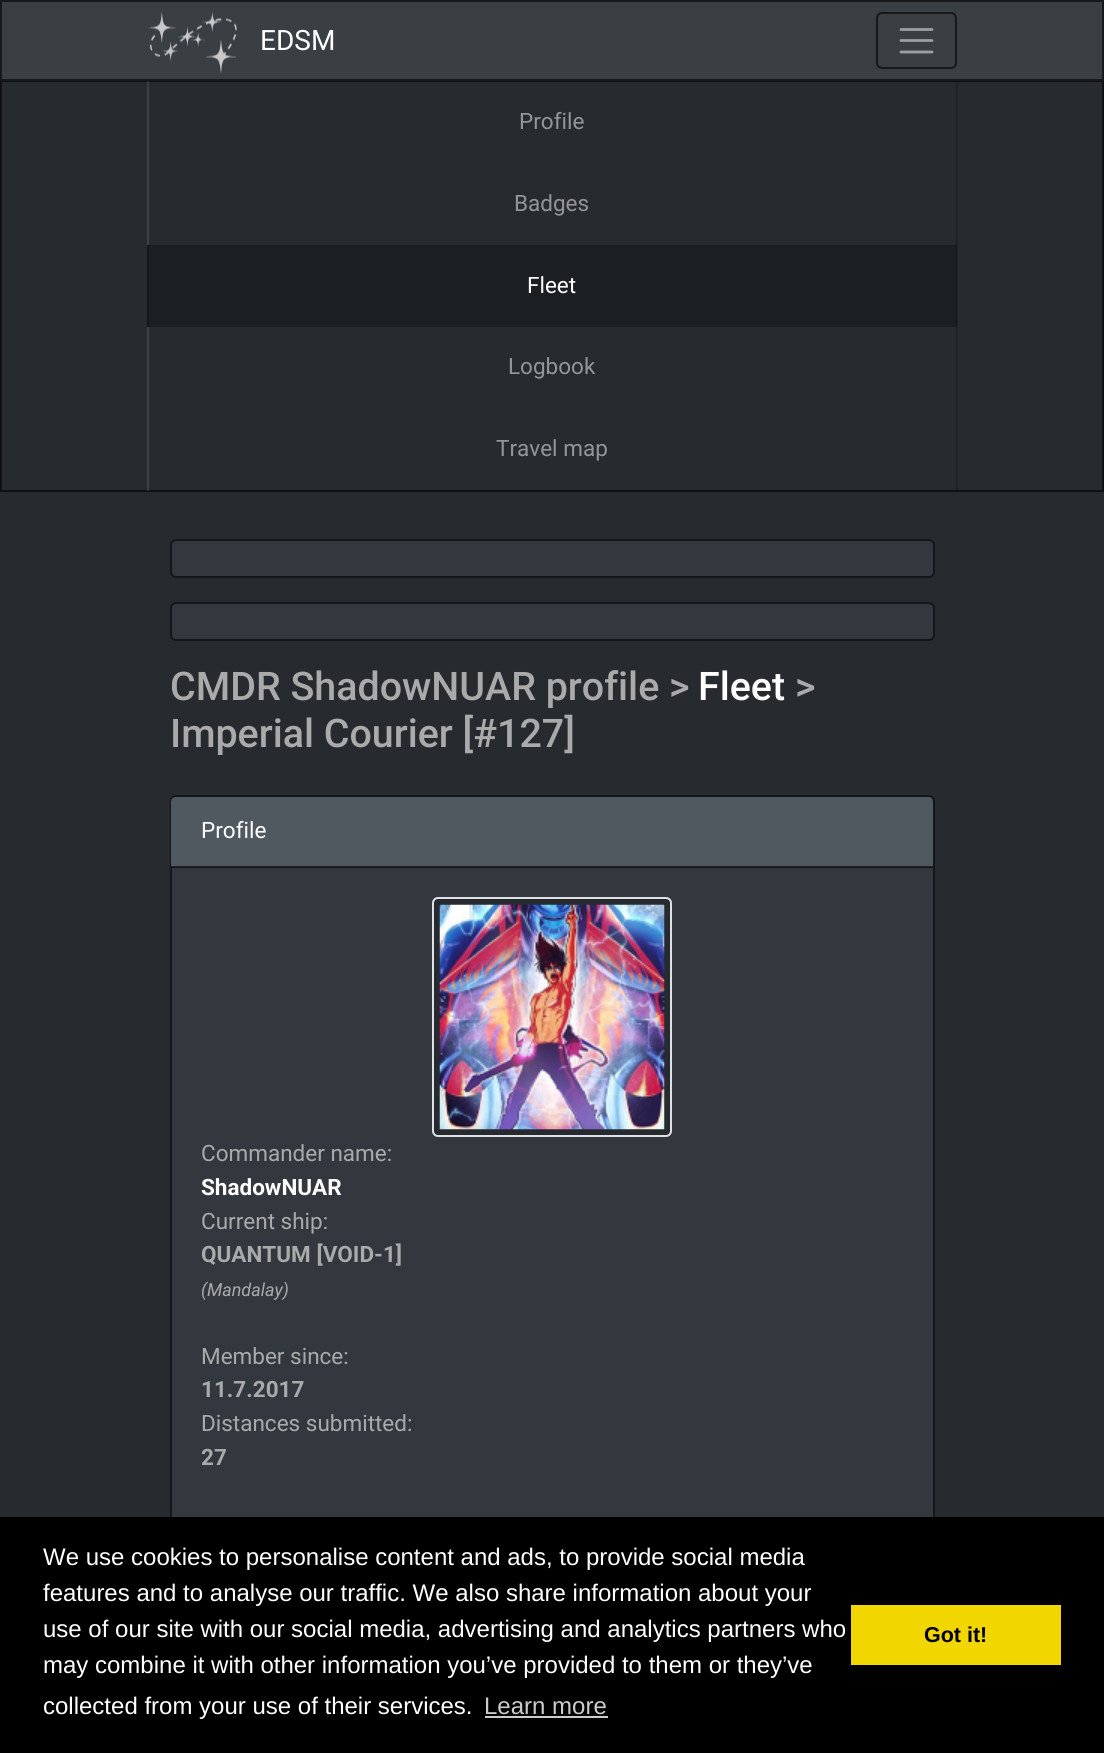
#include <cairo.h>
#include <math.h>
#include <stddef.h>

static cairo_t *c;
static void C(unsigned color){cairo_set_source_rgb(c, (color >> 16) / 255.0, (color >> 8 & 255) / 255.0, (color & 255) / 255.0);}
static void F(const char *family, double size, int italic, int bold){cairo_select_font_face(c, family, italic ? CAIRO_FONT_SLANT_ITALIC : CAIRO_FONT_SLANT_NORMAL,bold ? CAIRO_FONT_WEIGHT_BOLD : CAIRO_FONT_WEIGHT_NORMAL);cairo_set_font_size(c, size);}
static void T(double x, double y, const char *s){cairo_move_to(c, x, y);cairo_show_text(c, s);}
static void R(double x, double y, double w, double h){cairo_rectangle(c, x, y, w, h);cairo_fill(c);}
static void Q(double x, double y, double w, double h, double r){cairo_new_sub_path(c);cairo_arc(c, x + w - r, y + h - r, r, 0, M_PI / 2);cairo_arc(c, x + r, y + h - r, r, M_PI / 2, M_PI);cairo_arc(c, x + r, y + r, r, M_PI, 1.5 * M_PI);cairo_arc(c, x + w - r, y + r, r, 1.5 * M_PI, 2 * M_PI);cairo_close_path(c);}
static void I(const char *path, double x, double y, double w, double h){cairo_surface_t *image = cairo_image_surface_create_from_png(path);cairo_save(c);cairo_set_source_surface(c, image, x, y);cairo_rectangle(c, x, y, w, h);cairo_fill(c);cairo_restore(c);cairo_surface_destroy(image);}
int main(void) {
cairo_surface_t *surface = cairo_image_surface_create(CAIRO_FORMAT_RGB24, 1104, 1753);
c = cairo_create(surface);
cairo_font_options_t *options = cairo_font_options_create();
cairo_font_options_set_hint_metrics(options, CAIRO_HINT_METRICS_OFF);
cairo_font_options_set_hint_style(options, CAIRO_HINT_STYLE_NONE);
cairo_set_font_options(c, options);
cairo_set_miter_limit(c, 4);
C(0x272b30);
cairo_paint(c);
C(0x1f2226);
R(957,245,1,82);
cairo_rectangle(c,1,81,1102,410);
C(0x101113);
cairo_stroke(c);
C(0x3a3f44);
cairo_rectangle(c,1,1,1102,79);
cairo_fill_preserve(c);
C(0x17191b);
cairo_stroke(c);
I("1.png",148,12,89,62);
F("Roboto",28,0,0);
C(0xffffff);
T(260,50,"EDSM");
Q(877,13,79,55,5);
C(0x17191b);
cairo_stroke(c);
cairo_new_path(c);
cairo_move_to(c,901,29.5);
cairo_line_to(c,932,29.5);
cairo_move_to(c,901,40.5);
cairo_line_to(c,932,40.5);
cairo_move_to(c,901,52);
cairo_line_to(c,932,52);
C(0x9d9fa2);
cairo_set_line_width(c,2.8);
cairo_set_line_cap(c,CAIRO_LINE_CAP_ROUND);
cairo_stroke(c);
cairo_set_source_rgba(c,0,0,0,0.2);
R(956,81,2,83);
cairo_set_source_rgba(c,1,1,1,0.1);
R(147,81,2,83);
F("Roboto",22.5,0,0);
C(0x939598);
T(519,129,"Profile");
C(0x1f2226);
R(956,164,2,81);
C(0x3d4045);
R(147,164,2,81);
C(0x939598);
T(514,211,"Badges");
C(0x1b1e22);
R(149,245,807,82);
C(0x16181b);
R(956,245,1,82);
R(147,245,2,82);
C(0xffffff);
T(527,293,"Fleet");
C(0x1f2226);
R(956,327,2,81);
C(0x3d4045);
R(147,327,2,81);
C(0x939598);
T(508,374,"Logbook");
cairo_set_source_rgba(c,0,0,0,0.2);
R(956,408,2,83);
cairo_set_source_rgba(c,1,1,1,0.1);
R(147,408,2,83);
C(0x939598);
T(496,456,"Travel map");
C(0x32383e);
Q(170,539,765,39,6);
cairo_fill(c);
Q(171,540,763,37,5);
cairo_set_source_rgba(c,0,0,0,0.6);
cairo_set_line_width(c,2);
cairo_set_line_cap(c,CAIRO_LINE_CAP_BUTT);
cairo_stroke(c);
C(0x32383e);
Q(170,602,765,39,6);
cairo_fill(c);
Q(171,603,763,37,5);
cairo_set_source_rgba(c,0,0,0,0.6);
cairo_stroke(c);
F("Roboto Medium",39.4,0,0);
C(0xaaaaaa);
T(170,700,"CMDR ShadowNUAR profile >");
C(0xffffff);
T(698,700,"Fleet");
C(0xaaaaaa);
T(795,700,">");
T(170,747,"Imperial Courier [#127]");
C(0x32383e);
Q(170,795,765,881,6);
cairo_fill(c);
Q(171,796,763,879,5);
cairo_set_source_rgba(c,0,0,0,0.6);
cairo_stroke(c);
C(0x515960);
cairo_new_path(c);
cairo_move_to(c,176,797);
cairo_line_to(c,928,797);
cairo_curve_to(c,931,797,933,799,933,802);
cairo_line_to(c,933,867);
cairo_line_to(c,171,867);
cairo_line_to(c,171,802);
cairo_curve_to(c,171,799,173,797,176,797);
cairo_close_path(c);
cairo_fill(c);
cairo_set_source_rgba(c,0,0,0,0.6);
R(171,866,762,2);
F("Roboto",22.5,0,0);
C(0xffffff);
T(201,838,"Profile");
C(0x272b30);
Q(433,898,238,238,5);
cairo_fill_preserve(c);
C(0xdee2e6);
cairo_stroke(c);
I("2.png",439,904,226,226);
C(0xaaaaaa);
T(201,1161,"Commander name:");
F("Roboto",22.5,0,1);
C(0xffffff);
T(201,1195,"ShadowNUAR");
F("Roboto",22.5,0,0);
C(0xaaaaaa);
T(201,1229,"Current ship:");
F("Roboto",22.5,0,1);
T(201,1262,"QUANTUM [VOID-1]");
F("Roboto",18,1,0);
T(201,1296,"(Mandalay)");
F("Roboto",22.5,0,0);
T(201,1364,"Member since:");
F("Roboto",22.5,0,1);
T(201,1397,"11.7.2017");
F("Roboto",22.5,0,0);
T(201,1431,"Distances submitted:");
F("Roboto",22.5,0,1);
T(201,1465,"27");
C(0x000000);
R(0,1517,1104,236);
F("Liberation Sans",24,0,0);
C(0xffffff);
T(43,1565,"We use cookies to personalise content and ads, to provide social media");
T(43,1601,"features and to analyse our traffic. We also share information about your");
T(43,1637,"use of our site with our social media, advertising and analytics partners who");
T(43,1673,"may combine it with other information you’ve provided to them or they’ve");
T(43,1714,"collected from your use of their services.");
C(0xcccccc);
T(484,1714,"Learn more");
R(485,1716,123,2);
C(0xf1d600);
R(851,1605,210,60);
F("Liberation Sans",21.5,0,1);
C(0x000000);
T(924,1642,"Got it!");
cairo_surface_write_to_png(surface, "o.png");
cairo_font_options_destroy(options);
cairo_destroy(c);
cairo_surface_destroy(surface);
return 0;
}
